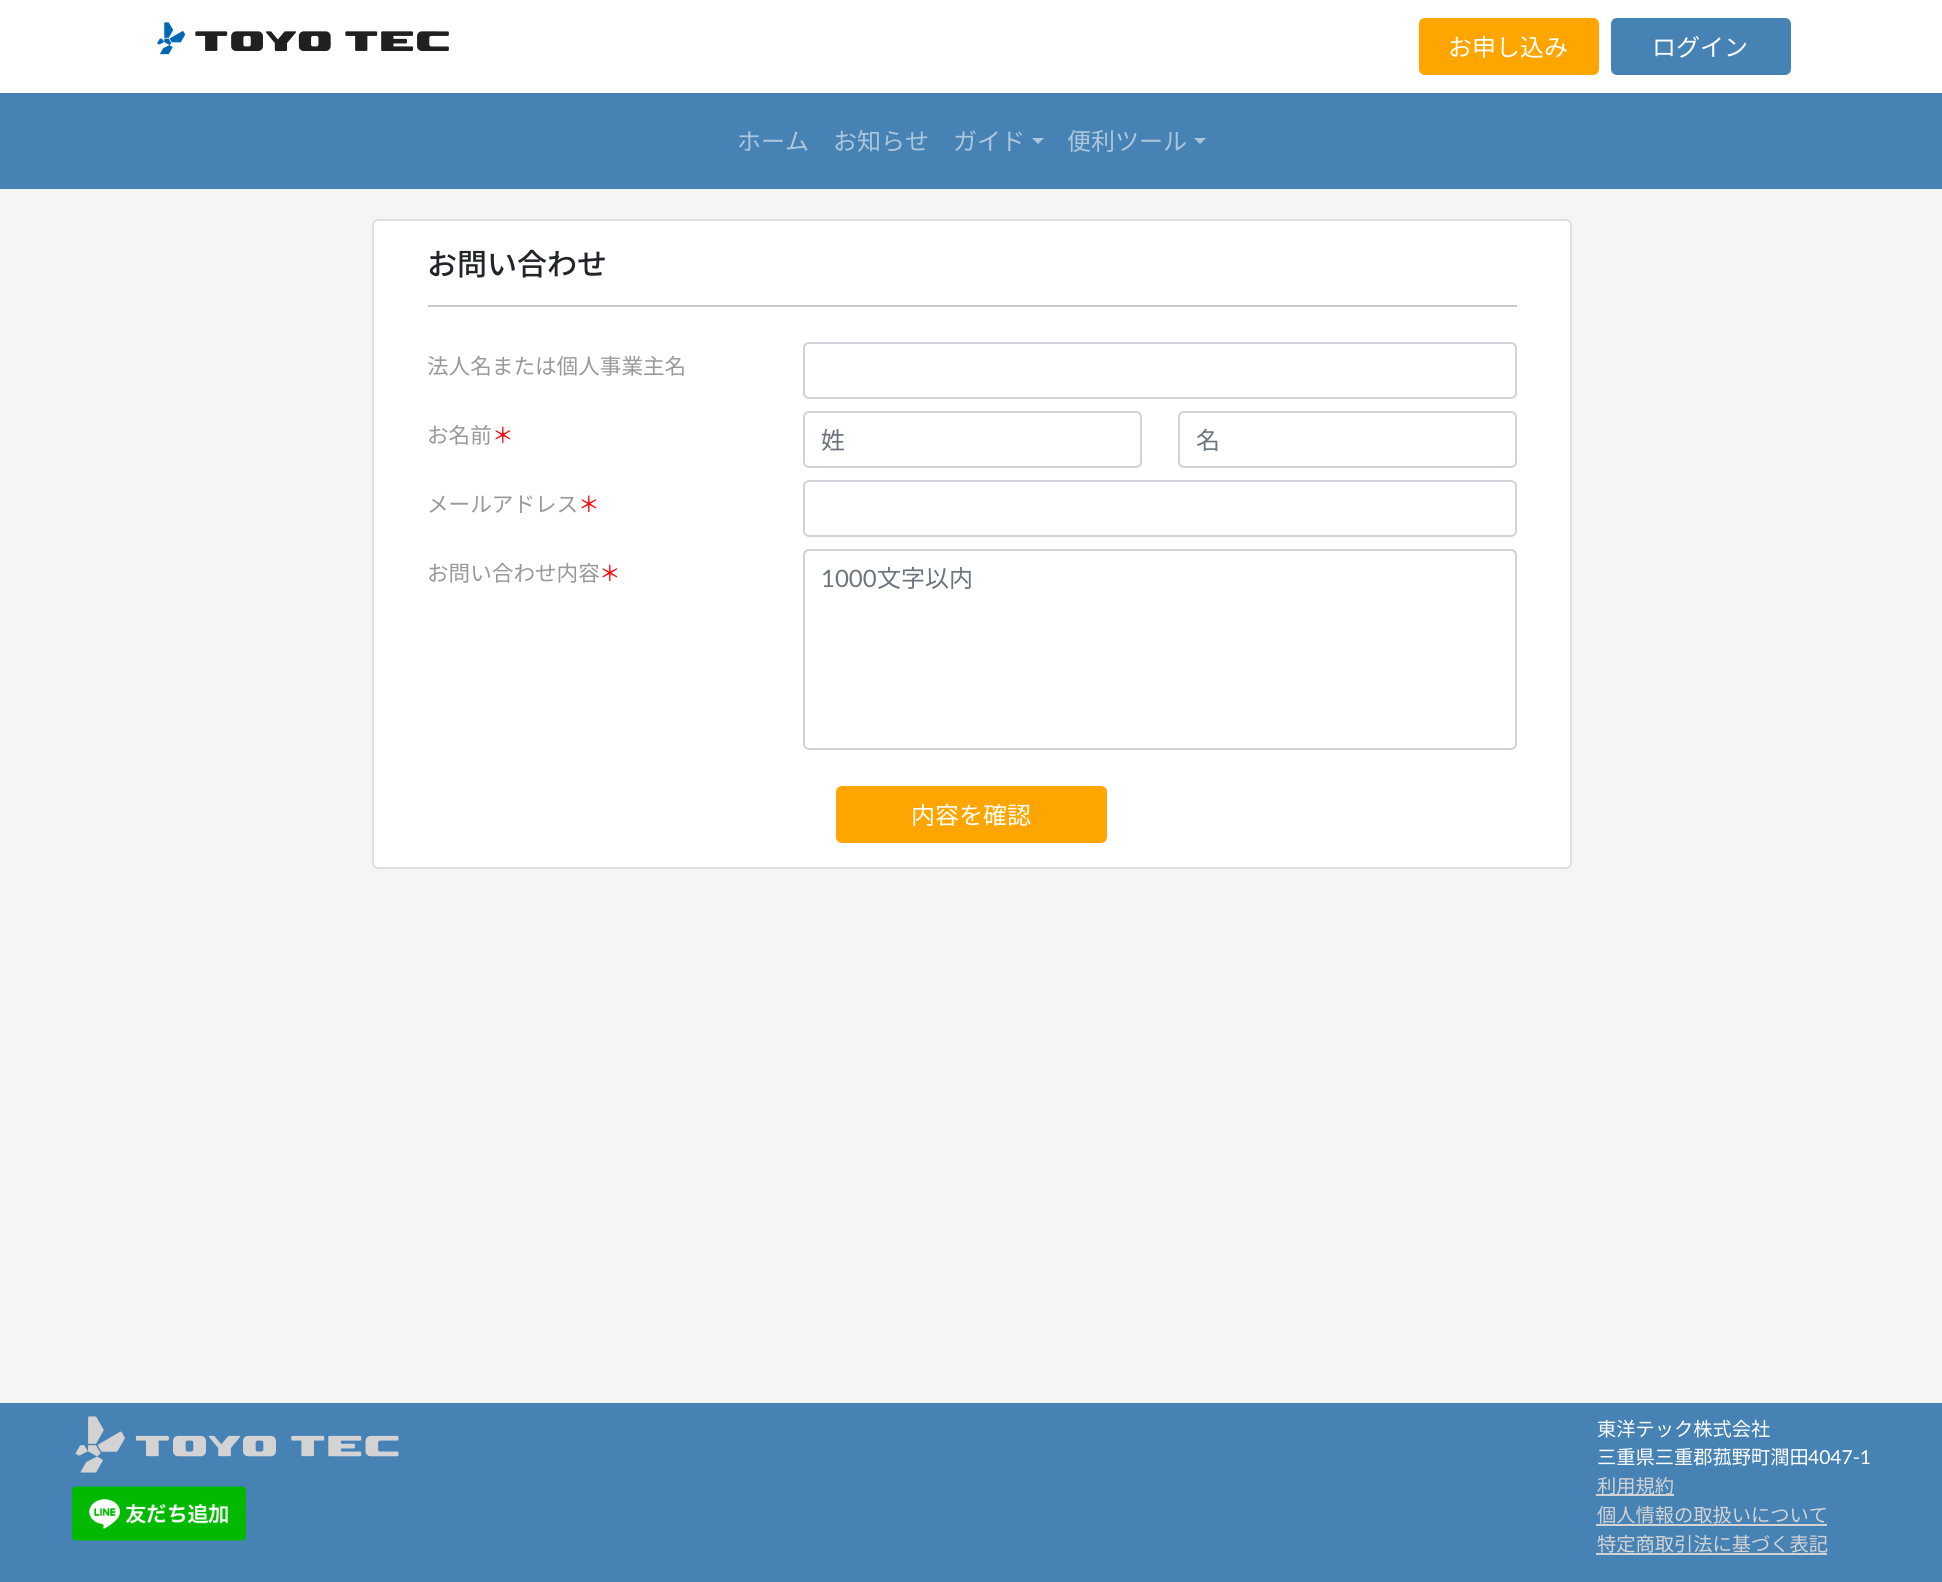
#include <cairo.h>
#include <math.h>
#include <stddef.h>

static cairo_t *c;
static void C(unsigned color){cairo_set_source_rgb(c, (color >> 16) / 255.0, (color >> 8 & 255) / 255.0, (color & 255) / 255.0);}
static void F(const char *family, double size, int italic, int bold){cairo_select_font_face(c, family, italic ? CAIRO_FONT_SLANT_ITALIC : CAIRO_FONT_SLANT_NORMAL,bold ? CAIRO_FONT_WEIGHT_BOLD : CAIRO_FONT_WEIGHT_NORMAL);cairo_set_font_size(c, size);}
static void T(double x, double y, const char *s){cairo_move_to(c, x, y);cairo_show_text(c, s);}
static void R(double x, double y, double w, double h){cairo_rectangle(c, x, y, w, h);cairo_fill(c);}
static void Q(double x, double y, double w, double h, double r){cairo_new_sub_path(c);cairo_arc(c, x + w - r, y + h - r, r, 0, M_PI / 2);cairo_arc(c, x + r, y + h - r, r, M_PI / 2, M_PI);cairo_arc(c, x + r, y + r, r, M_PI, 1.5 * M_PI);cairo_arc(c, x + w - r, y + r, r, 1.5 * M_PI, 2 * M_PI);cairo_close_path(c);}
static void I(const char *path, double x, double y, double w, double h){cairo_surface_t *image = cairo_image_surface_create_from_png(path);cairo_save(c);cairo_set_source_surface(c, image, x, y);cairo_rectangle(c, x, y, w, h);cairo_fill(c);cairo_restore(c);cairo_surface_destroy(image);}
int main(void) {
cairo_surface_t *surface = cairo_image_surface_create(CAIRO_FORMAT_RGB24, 1942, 1582);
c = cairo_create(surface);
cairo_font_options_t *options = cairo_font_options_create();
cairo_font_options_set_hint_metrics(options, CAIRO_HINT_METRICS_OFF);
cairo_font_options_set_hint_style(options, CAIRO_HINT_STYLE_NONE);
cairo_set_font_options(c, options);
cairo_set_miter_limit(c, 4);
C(0xf5f5f5);
cairo_paint(c);
C(0xffffff);
R(0,0,1942,93);
I("1.png",157,22,292,33);
C(0xffa500);
Q(1419,18,180,57,6);
cairo_fill(c);
F("Noto Sans JP",24,0,0);
C(0xffffff);
T(1448,56,"お申し込み");
C(0x4682b4);
Q(1611,18,180,57,6);
cairo_fill(c);
C(0xffffff);
T(1652,56,"ログイン");
C(0x4682b4);
R(0,93,1942,96);
C(0xacc7dd);
T(737,150,"ホーム");
T(833,150,"お知らせ");
T(953,150,"ガイド");
cairo_new_path(c);
cairo_move_to(c,1032,138);
cairo_line_to(c,1044,138);
cairo_line_to(c,1038,144);
cairo_close_path(c);
cairo_fill(c);
T(1067,150,"便利ツール");
cairo_new_path(c);
cairo_move_to(c,1194,138);
cairo_line_to(c,1206,138);
cairo_line_to(c,1200,144);
cairo_close_path(c);
cairo_fill(c);
C(0xffffff);
Q(373,220,1198,648,5);
cairo_fill_preserve(c);
C(0xdfdfdf);
cairo_stroke(c);
F("Noto Sans JP Medium",30,0,0);
C(0x212529);
T(427,275,"お問い合わせ");
C(0xc8c9ca);
R(428,305,1089,2);
F("Noto Sans JP",21.6,0,0);
C(0x999999);
T(427,374,"法人名または個人事業主名");
Q(804,343,712,55,5);
C(0xced4da);
cairo_stroke(c);
C(0x999999);
T(427,443,"お名前");
C(0xff0000);
T(492,443,"＊");
Q(804,412,337,55,5);
C(0xced4da);
cairo_stroke(c);
F("Noto Sans JP",24,0,0);
C(0x6c757d);
T(821,449,"姓");
Q(1179,412,337,55,5);
C(0xced4da);
cairo_stroke(c);
C(0x6c757d);
T(1196,449,"名");
F("Noto Sans JP",21.6,0,0);
C(0x999999);
T(427,512,"メールアドレス");
C(0xff0000);
T(578,512,"＊");
Q(804,481,712,55,5);
C(0xced4da);
cairo_stroke(c);
C(0x999999);
T(427,581,"お問い合わせ内容");
C(0xff0000);
T(599,581,"＊");
Q(804,550,712,199,5);
C(0xced4da);
cairo_stroke(c);
F("Lato",24,0,0);
C(0x6c757d);
T(821,587,"1000");
F("Noto Sans JP",24,0,0);
T(877,587,"文字以内");
C(0xffa500);
Q(836,786,271,57,6);
cairo_fill(c);
C(0xffffff);
T(911,824,"内容を確認");
C(0x4682b4);
R(0,1403,1942,179);
I("2.png",75,1416,324,57);
I("3.png",72,1486,174,55);
F("Noto Sans JP",19.25,0,0);
C(0xffffff);
T(1597,1436,"東洋テック株式会社");
T(1597,1464,"三重県三重郡菰野町潤田");
F("Lato",19.25,0,0);
T(1808,1464,"4047-1");
C(0xd3d3d3);
R(1596,1494,78,2);
F("Noto Sans JP",19.25,0,0);
T(1597,1493,"利用規約");
T(1597,1522,"個人情報の取扱いについて");
R(1596,1524,231,2);
T(1597,1551,"特定商取引法に基づく表記");
R(1596,1553,231,2);
cairo_surface_write_to_png(surface, "o.png");
cairo_font_options_destroy(options);
cairo_destroy(c);
cairo_surface_destroy(surface);
return 0;
}
